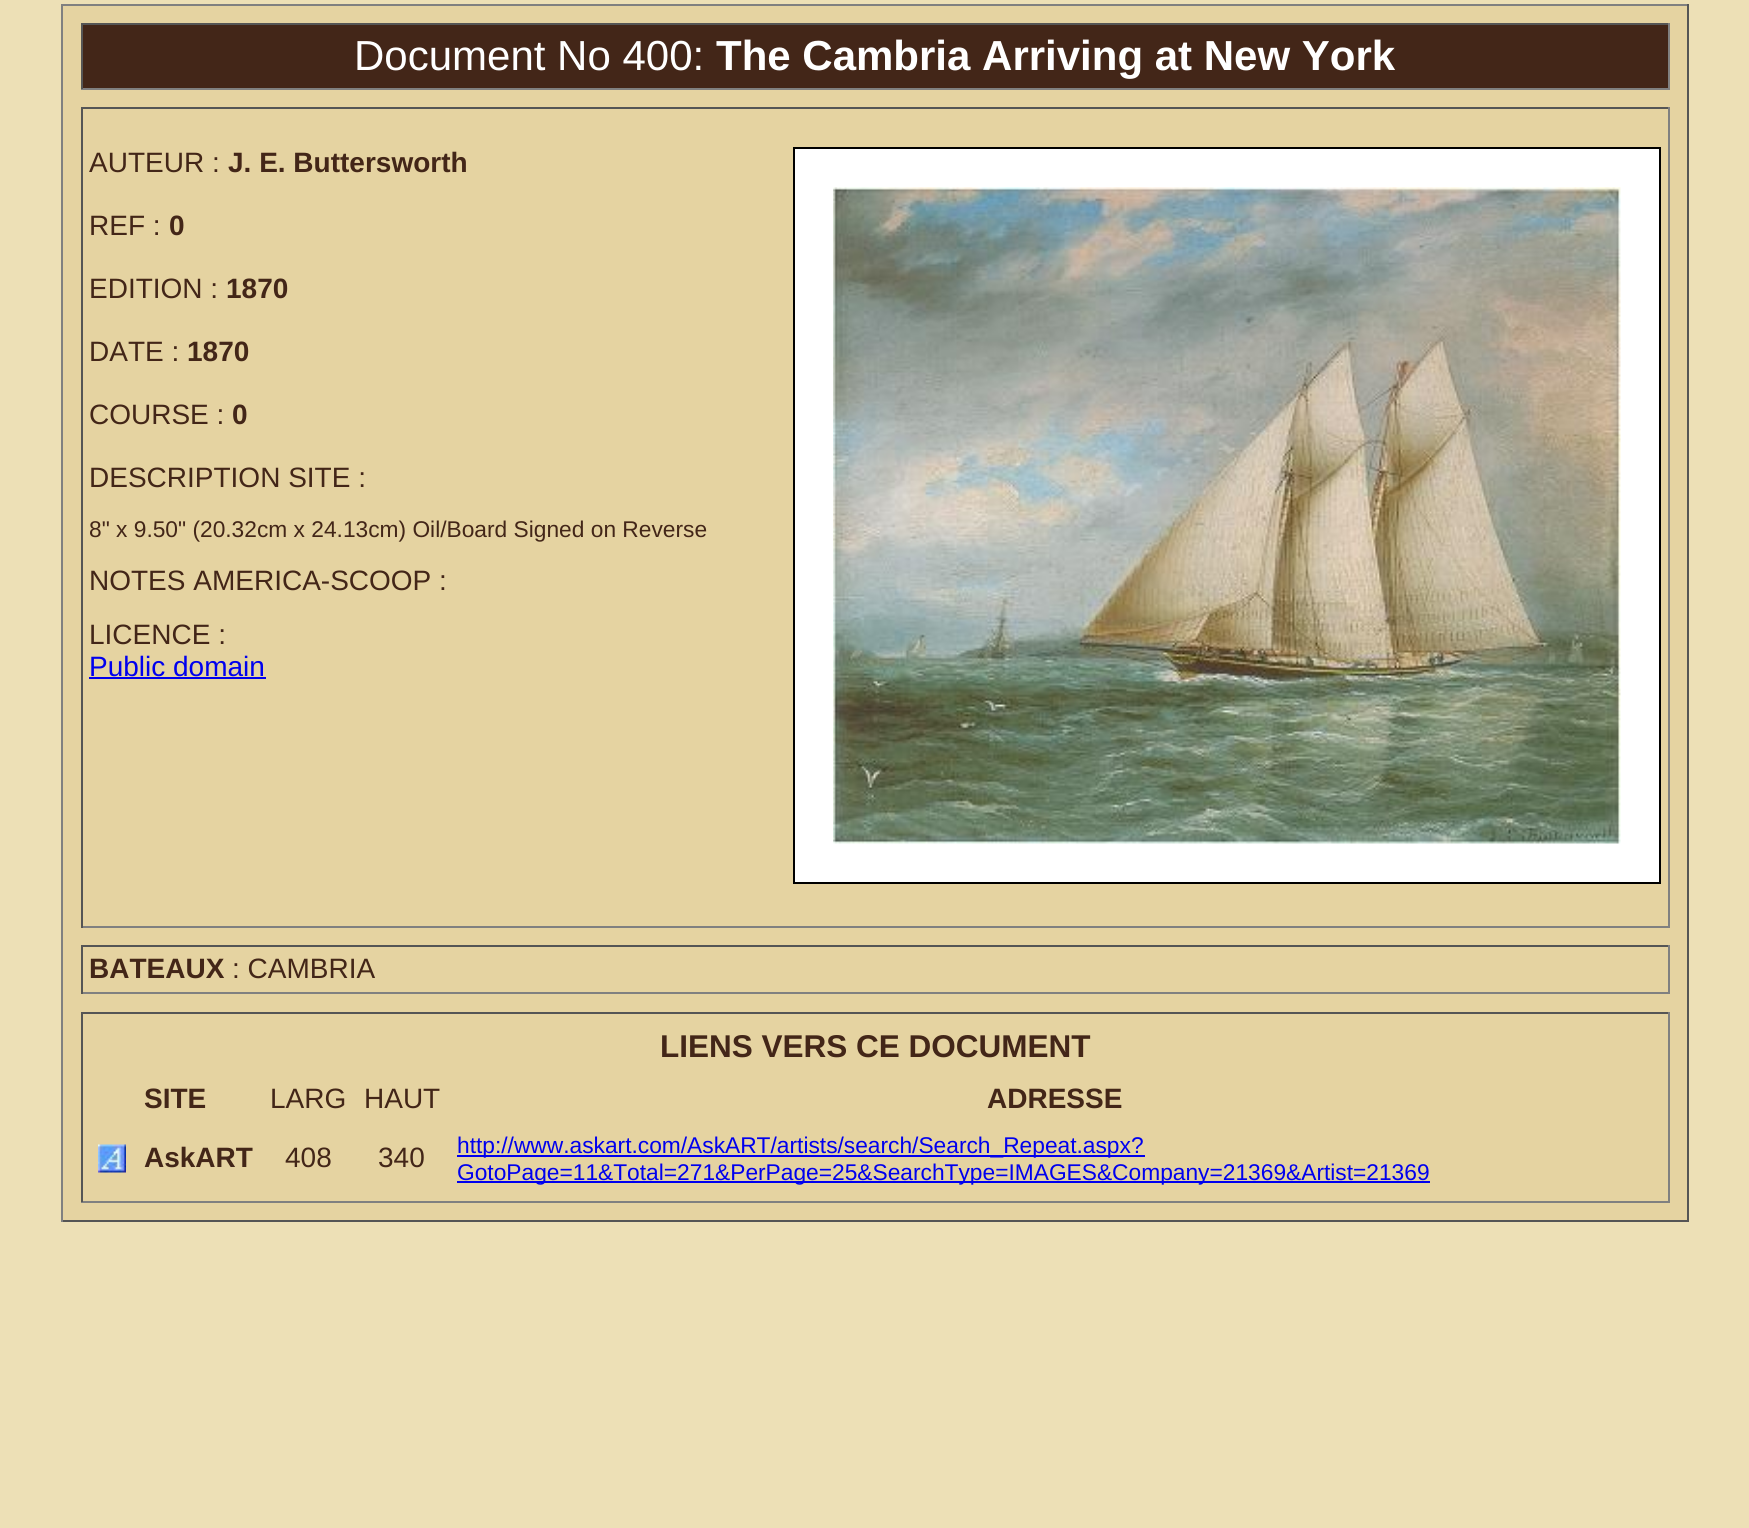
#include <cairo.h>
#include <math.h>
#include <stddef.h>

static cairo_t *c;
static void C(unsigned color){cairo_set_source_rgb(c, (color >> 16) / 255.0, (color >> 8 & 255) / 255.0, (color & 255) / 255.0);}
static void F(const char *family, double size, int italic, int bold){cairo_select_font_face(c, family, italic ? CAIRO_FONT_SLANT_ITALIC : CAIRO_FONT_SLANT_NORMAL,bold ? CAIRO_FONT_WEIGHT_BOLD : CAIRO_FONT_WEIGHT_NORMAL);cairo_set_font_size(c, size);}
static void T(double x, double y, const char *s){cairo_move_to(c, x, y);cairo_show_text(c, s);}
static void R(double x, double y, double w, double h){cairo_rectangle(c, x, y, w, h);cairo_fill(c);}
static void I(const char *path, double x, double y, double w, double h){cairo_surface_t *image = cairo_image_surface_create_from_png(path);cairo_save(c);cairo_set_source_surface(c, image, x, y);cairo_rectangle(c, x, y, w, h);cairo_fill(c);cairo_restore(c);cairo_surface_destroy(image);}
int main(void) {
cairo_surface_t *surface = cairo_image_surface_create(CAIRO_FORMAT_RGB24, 1749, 1528);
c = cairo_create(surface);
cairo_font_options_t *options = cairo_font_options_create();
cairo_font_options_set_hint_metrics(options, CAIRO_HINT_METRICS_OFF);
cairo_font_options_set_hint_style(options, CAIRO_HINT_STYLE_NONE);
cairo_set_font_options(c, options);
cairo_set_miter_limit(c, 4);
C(0xede0b6);
cairo_paint(c);
C(0xe5d3a1);
R(63,6,1624,1214);
C(0x808080);
R(61,4,1628,2);
C(0x555555);
R(1687,4,2,1218);
R(61,1220,1628,2);
C(0x808080);
R(61,4,2,1218);
C(0x432618);
R(83,25,1585,63);
C(0x555555);
R(81,23,1589,2);
C(0x808080);
R(1668,23,2,66);
R(81,88,1589,2);
C(0x555555);
R(81,23,2,66);
F("Liberation Sans",42,0,0);
C(0xffffff);
T(354,70,"Document No 400:");
F("Liberation Sans",42,0,1);
T(716,70,"The Cambria Arriving at New York");
C(0x555555);
R(81,107,1589,2);
C(0x808080);
R(1668,107,2,821);
R(81,926,1589,2);
C(0x555555);
R(81,107,2,821);
F("Liberation Sans",28,0,0);
C(0x432618);
T(89,172,"AUTEUR :");
F("Liberation Sans",28,0,1);
T(228,172,"J. E. Buttersworth");
C(0xffffff);
cairo_rectangle(c,794,148,866,735);
cairo_fill_preserve(c);
C(0x000000);
cairo_stroke(c);
I("1.png",833,187,788,657);
F("Liberation Sans",28,0,0);
C(0x432618);
T(89,235,"REF :");
F("Liberation Sans",28,0,1);
T(169,235,"0");
F("Liberation Sans",28,0,0);
T(89,298,"EDITION :");
F("Liberation Sans",28,0,1);
T(226,298,"1870");
F("Liberation Sans",28,0,0);
T(89,361,"DATE :");
F("Liberation Sans",28,0,1);
T(187,361,"1870");
F("Liberation Sans",28,0,0);
T(89,424,"COURSE :");
F("Liberation Sans",28,0,1);
T(232,424,"0");
F("Liberation Sans",28,0,0);
T(89,487,"DESCRIPTION SITE :");
F("Liberation Sans",22.75,0,0);
T(89,537,"8\" x 9.50\" (20.32cm x 24.13cm) Oil/Board Signed on Reverse");
F("Liberation Sans",28,0,0);
T(89,590,"NOTES AMERICA-SCOOP :");
T(89,644,"LICENCE :");
C(0x0000ee);
T(89,676,"Public domain");
R(89,677,177,2);
C(0x555555);
R(81,945,1589,2);
C(0x808080);
R(1668,945,2,49);
R(81,992,1589,2);
C(0x555555);
R(81,945,2,49);
F("Liberation Sans",28,0,1);
C(0x432618);
T(89,978,"BATEAUX");
F("Liberation Sans",28,0,0);
T(232,978,": CAMBRIA");
C(0x555555);
R(81,1012,1589,2);
C(0x808080);
R(1668,1012,2,190);
R(81,1201,1589,2);
C(0x555555);
R(81,1012,2,190);
F("Liberation Sans",31.5,0,1);
C(0x432618);
T(660,1057,"LIENS VERS CE DOCUMENT");
F("Liberation Sans",28,0,1);
T(144,1108,"SITE");
F("Liberation Sans",28,0,0);
T(270,1108,"LARG");
T(364,1108,"HAUT");
F("Liberation Sans",28,0,1);
T(987,1108,"ADRESSE");
I("2.png",98,1144,28,29);
T(144,1167,"AskART");
F("Liberation Sans",28,0,0);
T(285,1167,"408");
T(378,1167,"340");
C(0x0000ee);
R(457,1155,688,2);
F("Liberation Sans",22.75,0,0);
T(457,1153,"http://www.askart.com/AskART/artists/search/Search_Repeat.aspx?");
R(457,1181,973,2);
T(457,1180,"GotoPage=11&Total=271&PerPage=25&SearchType=IMAGES&Company=21369&Artist=21369");
cairo_surface_write_to_png(surface, "o.png");
cairo_font_options_destroy(options);
cairo_destroy(c);
cairo_surface_destroy(surface);
return 0;
}
